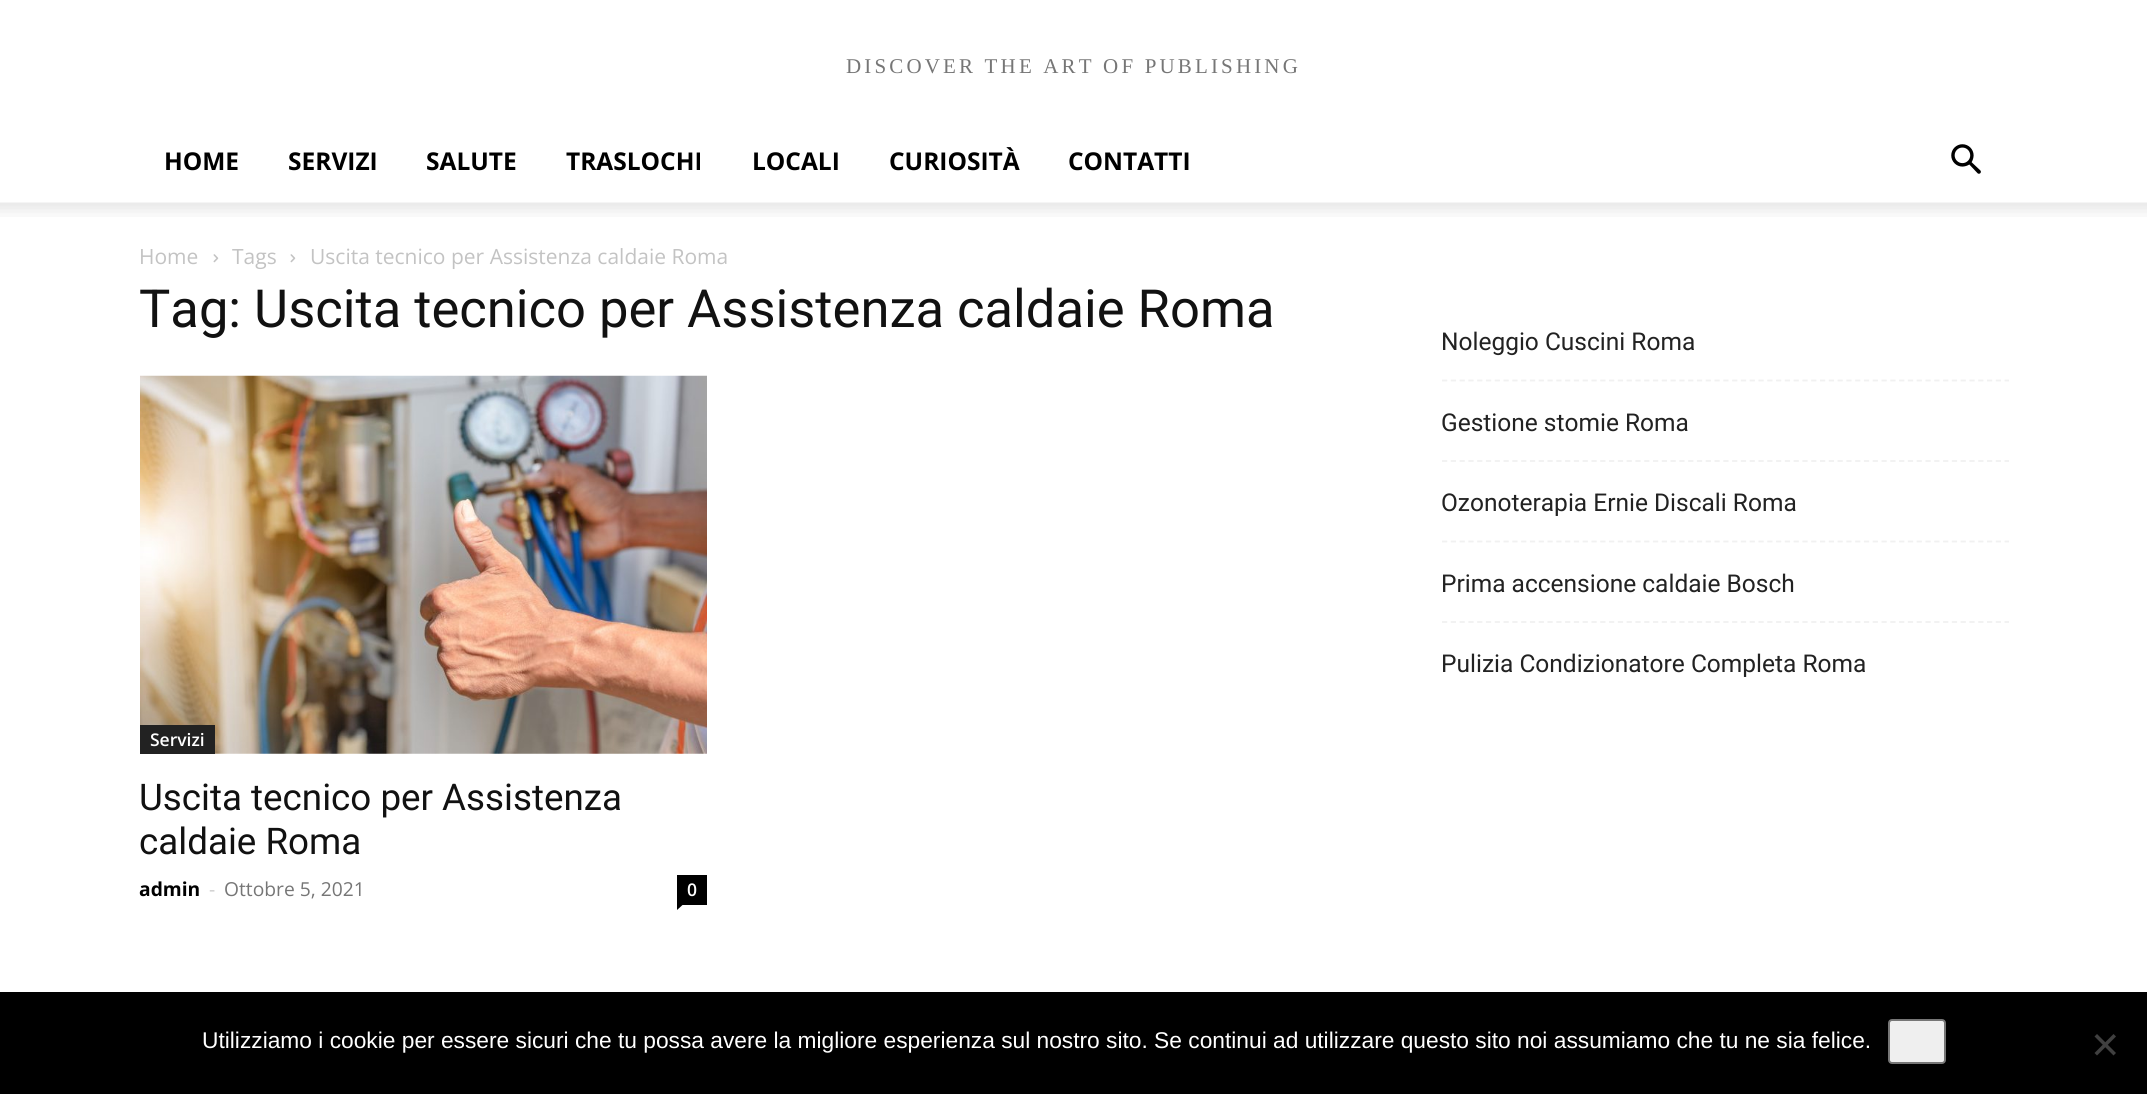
#include <cairo.h>
#include <math.h>
#include <stddef.h>

static cairo_t *c;
static void C(unsigned color){cairo_set_source_rgb(c, (color >> 16) / 255.0, (color >> 8 & 255) / 255.0, (color & 255) / 255.0);}
static void F(const char *family, double size, int italic, int bold){cairo_select_font_face(c, family, italic ? CAIRO_FONT_SLANT_ITALIC : CAIRO_FONT_SLANT_NORMAL,bold ? CAIRO_FONT_WEIGHT_BOLD : CAIRO_FONT_WEIGHT_NORMAL);cairo_set_font_size(c, size);}
static void T(double x, double y, const char *s){cairo_move_to(c, x, y);cairo_show_text(c, s);}
static void L(double x, double y, const char *s, double letter, double word){cairo_move_to(c, x, y);while (*s) {char ch[5] = {0};int n = 0;do ch[n++] = *s++; while ((*s & 0xC0) == 0x80);cairo_show_text(c, ch);cairo_rel_move_to(c, letter + word * (*ch == ' '), 0);}}
static void R(double x, double y, double w, double h){cairo_rectangle(c, x, y, w, h);cairo_fill(c);}
static void Q(double x, double y, double w, double h, double r){cairo_new_sub_path(c);cairo_arc(c, x + w - r, y + h - r, r, 0, M_PI / 2);cairo_arc(c, x + r, y + h - r, r, M_PI / 2, M_PI);cairo_arc(c, x + r, y + r, r, M_PI, 1.5 * M_PI);cairo_arc(c, x + w - r, y + r, r, 1.5 * M_PI, 2 * M_PI);cairo_close_path(c);}
static void I(const char *path, double x, double y, double w, double h){cairo_surface_t *image = cairo_image_surface_create_from_png(path);cairo_save(c);cairo_set_source_surface(c, image, x, y);cairo_rectangle(c, x, y, w, h);cairo_fill(c);cairo_restore(c);cairo_surface_destroy(image);}
int main(void) {
cairo_surface_t *surface = cairo_image_surface_create(CAIRO_FORMAT_RGB24, 2147, 1094);
c = cairo_create(surface);
cairo_font_options_t *options = cairo_font_options_create();
cairo_font_options_set_hint_metrics(options, CAIRO_HINT_METRICS_OFF);
cairo_font_options_set_hint_style(options, CAIRO_HINT_STYLE_NONE);
cairo_set_font_options(c, options);
cairo_set_miter_limit(c, 4);
C(0xffffff);
cairo_paint(c);
F("Liberation Serif",21,0,0);
C(0x767676);
L(846,73,"DISCOVER THE ART OF PUBLISHING",3.15,0);
F("Open Sans",24.5,0,1);
C(0x000000);
T(164,170,"HOME");
T(288,170,"SERVIZI");
T(426,170,"SALUTE");
T(566,170,"TRASLOCHI");
T(752,170,"LOCALI");
T(889,170,"CURIOSITÀ");
T(1068,170,"CONTATTI");
I("1.png",1951,144,30,30);
I("2.png",0,202,2147,15);
F("Open Sans",21,0,0);
C(0xc3c3c3);
T(139,264,"Home");
I("3.png",213,254,6,9);
T(232,264,"Tags");
I("3.png",290,254,6,9);
T(310,264,"Uscita tecnico per Assistenza caldaie Roma");
F("Roboto",52.5,0,0);
C(0x111111);
T(139,327,"Tag: Uscita tecnico per Assistenza caldaie Roma");
I("4.png",140,375,567,379);
C(0x222222);
R(140,725,75,29);
F("Open Sans SemiBold",17.5,0,0);
C(0xffffff);
T(150,746,"Servizi");
F("Roboto",36.75,0,0);
C(0x111111);
T(139,810,"Uscita tecnico per Assistenza");
T(139,854,"caldaie Roma");
F("Open Sans",19.25,0,1);
C(0x000000);
T(139,896,"admin");
F("Open Sans",19.25,0,0);
C(0xcccccc);
T(209,896,"-");
C(0x767676);
T(224,896,"Ottobre 5, 2021");
C(0x000000);
R(677,875,30,30);
F("Open Sans SemiBold",17.5,0,0);
C(0xffffff);
T(687,896,"0");
C(0x000000);
cairo_new_path(c);
cairo_move_to(c,677,905);
cairo_line_to(c,682.5,905);
cairo_line_to(c,677,910);
cairo_close_path(c);
cairo_fill(c);
cairo_new_path(c);
cairo_move_to(c,1442,380.5);
cairo_line_to(c,2009,380.5);
C(0xf1f1f1);
cairo_set_line_width(c,1.8);
cairo_set_dash(c,(double[]){5.25,3.54},2,0);
cairo_stroke(c);
F("Roboto",24.5,0,0);
C(0x222222);
T(1441,350,"Noleggio Cuscini Roma");
cairo_new_path(c);
cairo_move_to(c,1442,461);
cairo_line_to(c,2009,461);
C(0xf1f1f1);
cairo_stroke(c);
C(0x222222);
T(1441,431,"Gestione stomie Roma");
cairo_new_path(c);
cairo_move_to(c,1442,541.5);
cairo_line_to(c,2009,541.5);
C(0xf1f1f1);
cairo_stroke(c);
C(0x222222);
T(1441,511,"Ozonoterapia Ernie Discali Roma");
cairo_new_path(c);
cairo_move_to(c,1442,622);
cairo_line_to(c,2009,622);
C(0xf1f1f1);
cairo_stroke(c);
C(0x222222);
T(1441,592,"Prima accensione caldaie Bosch");
T(1441,672,"Pulizia Condizionatore Completa Roma");
C(0x000000);
R(0,992,2147,102);
F("Liberation Sans",22.75,0,0);
C(0xffffff);
T(202,1048,"Utilizziamo i cookie per essere sicuri che tu possa avere la migliore esperienza sul nostro sito. Se continui ad utilizzare questo sito noi assumiamo che tu ne sia felice.");
C(0xefefef);
Q(1889,1020,56,43,3);
cairo_fill_preserve(c);
C(0x767676);
cairo_set_line_width(c,2);
cairo_set_dash(c,NULL,0,0);
cairo_stroke(c);
C(0x404040);
cairo_new_path(c);
cairo_move_to(c,2113.5,1034);
cairo_line_to(c,2116,1036.5);
cairo_line_to(c,2097,1055.5);
cairo_line_to(c,2094.5,1053);
cairo_close_path(c);
cairo_fill(c);
cairo_new_path(c);
cairo_move_to(c,2094.5,1036.5);
cairo_line_to(c,2097,1034);
cairo_line_to(c,2116,1053);
cairo_line_to(c,2113.5,1055.5);
cairo_close_path(c);
cairo_fill(c);
cairo_surface_write_to_png(surface, "o.png");
cairo_font_options_destroy(options);
cairo_destroy(c);
cairo_surface_destroy(surface);
return 0;
}
